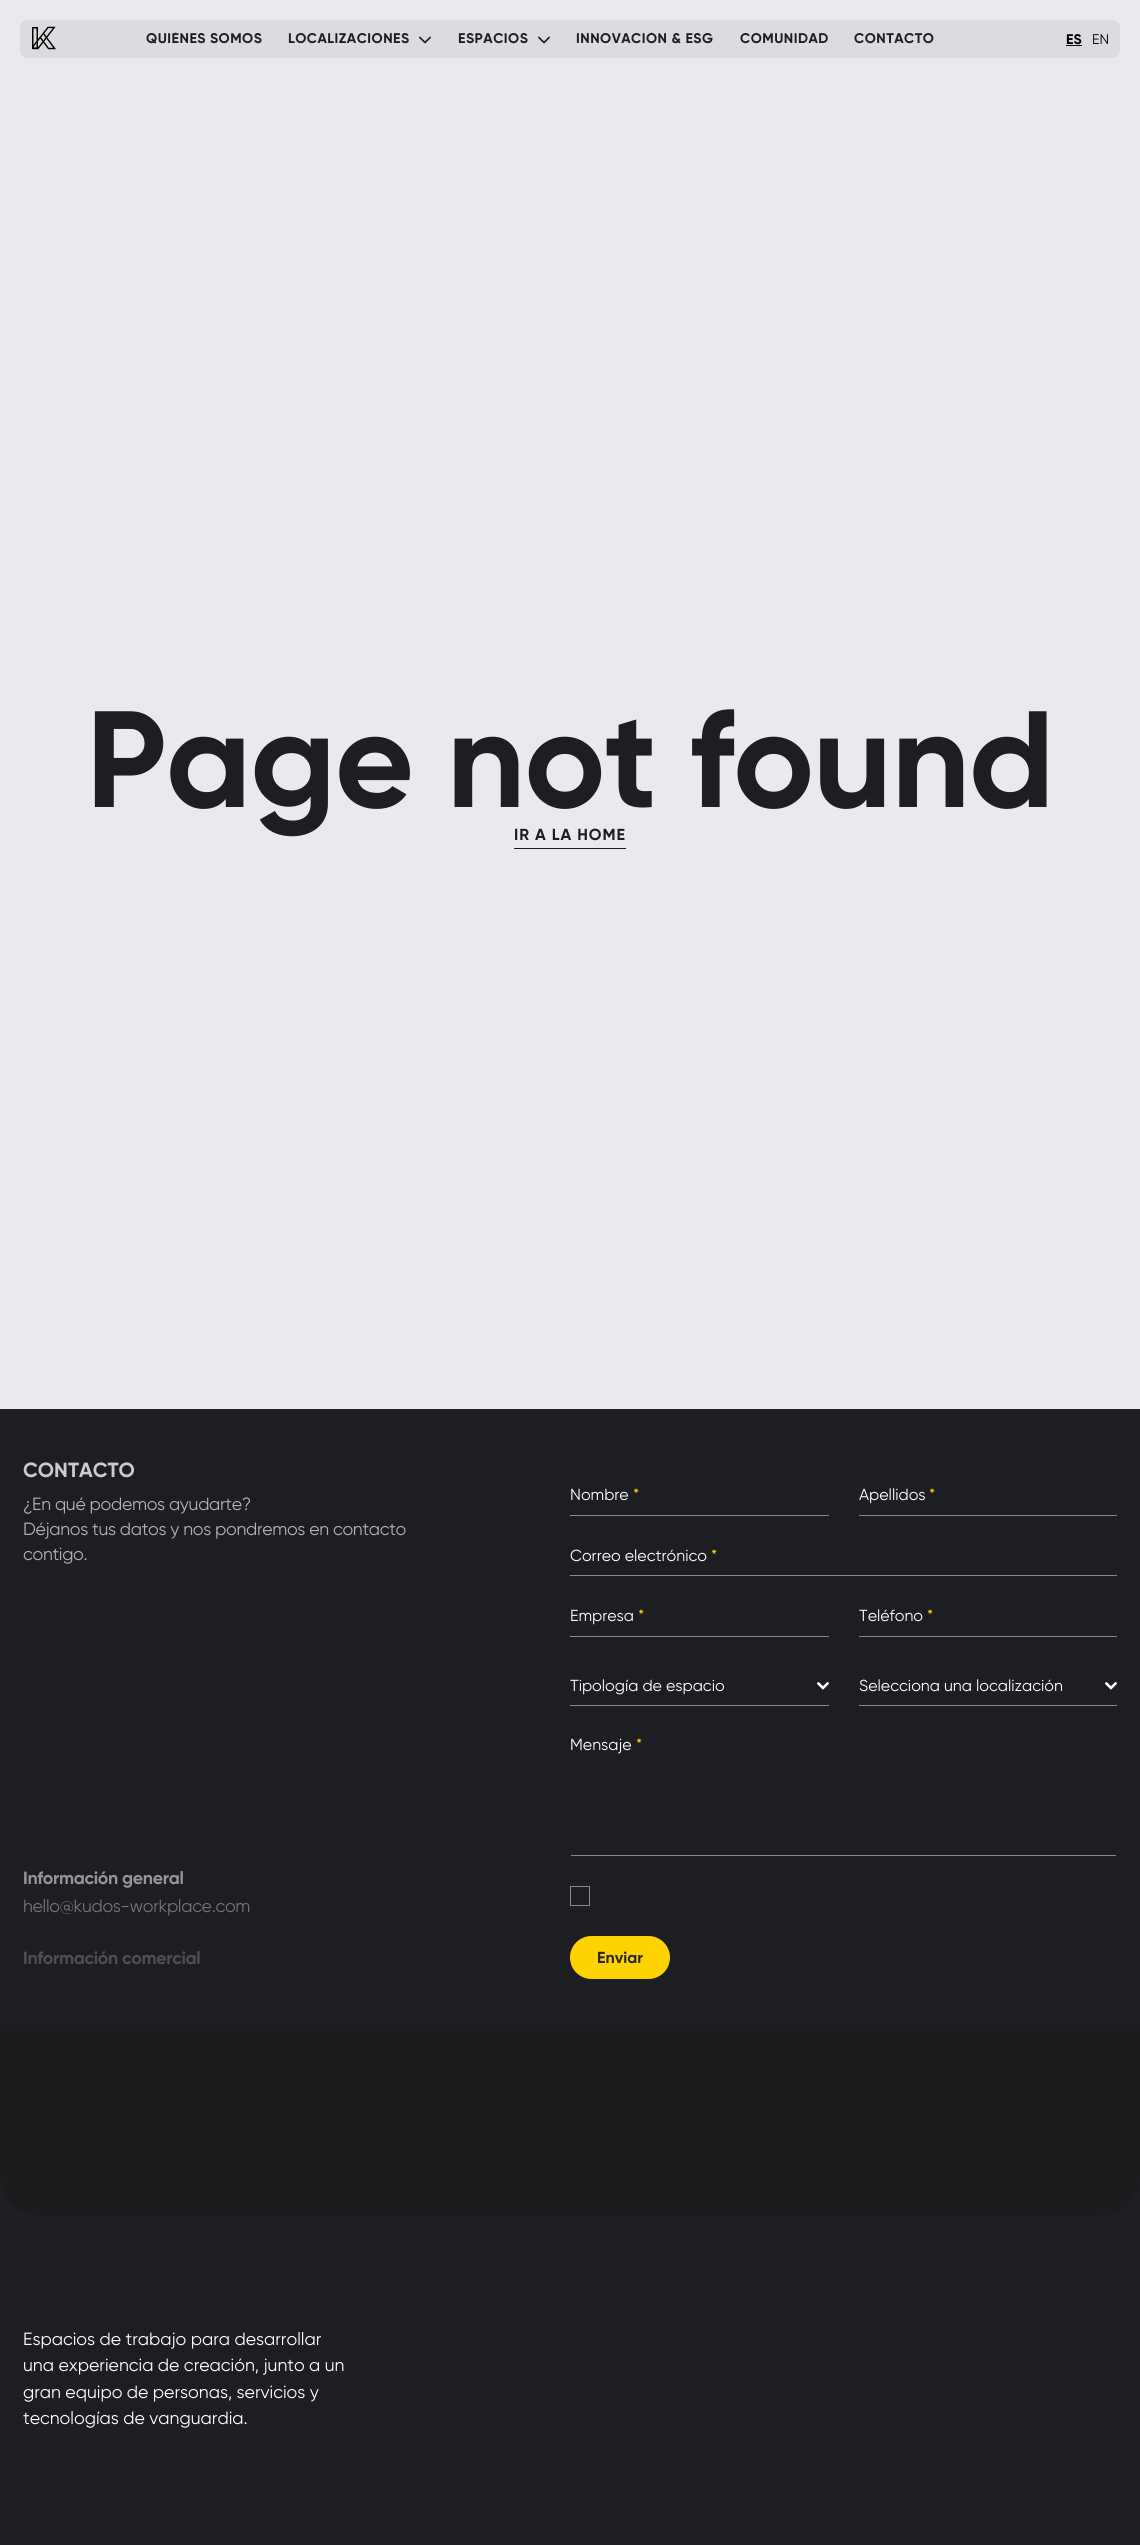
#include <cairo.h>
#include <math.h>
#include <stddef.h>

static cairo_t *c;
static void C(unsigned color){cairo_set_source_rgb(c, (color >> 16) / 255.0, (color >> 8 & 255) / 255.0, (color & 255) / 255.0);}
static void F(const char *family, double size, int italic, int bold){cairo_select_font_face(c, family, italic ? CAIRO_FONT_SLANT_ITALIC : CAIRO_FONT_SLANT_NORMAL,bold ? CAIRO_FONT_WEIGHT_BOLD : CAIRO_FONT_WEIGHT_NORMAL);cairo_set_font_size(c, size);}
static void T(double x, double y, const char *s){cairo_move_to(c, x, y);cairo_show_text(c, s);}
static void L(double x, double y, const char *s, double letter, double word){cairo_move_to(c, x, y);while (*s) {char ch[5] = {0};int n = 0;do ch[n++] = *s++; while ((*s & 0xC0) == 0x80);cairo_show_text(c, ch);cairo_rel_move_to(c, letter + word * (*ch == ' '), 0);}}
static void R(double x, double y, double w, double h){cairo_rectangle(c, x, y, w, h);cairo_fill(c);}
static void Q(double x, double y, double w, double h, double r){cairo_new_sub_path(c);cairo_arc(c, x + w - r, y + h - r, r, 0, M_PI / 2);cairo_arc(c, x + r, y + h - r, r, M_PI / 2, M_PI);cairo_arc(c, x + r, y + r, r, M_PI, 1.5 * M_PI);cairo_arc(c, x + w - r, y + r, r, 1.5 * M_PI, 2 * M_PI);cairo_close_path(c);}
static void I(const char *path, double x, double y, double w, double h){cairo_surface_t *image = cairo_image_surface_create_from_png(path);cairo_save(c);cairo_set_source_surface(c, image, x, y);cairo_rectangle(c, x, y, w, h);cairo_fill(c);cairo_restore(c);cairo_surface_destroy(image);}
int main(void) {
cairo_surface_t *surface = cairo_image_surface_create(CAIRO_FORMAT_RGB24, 1140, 2545);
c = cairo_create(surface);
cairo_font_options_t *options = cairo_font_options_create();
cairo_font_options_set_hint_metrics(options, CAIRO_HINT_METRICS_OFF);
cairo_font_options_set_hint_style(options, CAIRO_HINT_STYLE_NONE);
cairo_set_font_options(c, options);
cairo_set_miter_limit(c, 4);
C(0xe9eaed);
cairo_paint(c);
C(0xdbdce0);
Q(20,20,1100,38,8);
cairo_fill(c);
I("1.png",32,26,24,24);
cairo_save(c);
cairo_rectangle(c,146,32,116,14);
cairo_clip(c);
F("Gilroy",14,0,1);
C(0x1d1e21);
L(146,43,"QUIÉNES SOMOS",.5,0);
cairo_restore(c);
F("Gilroy",14,0,1);
C(0x1d1e21);
L(288,43,"LOCALIZACIONES",.5,0);
I("2.png",419,36,12,8);
L(458,43,"ESPACIOS",.5,0);
I("2.png",538,36,12,8);
cairo_save(c);
cairo_rectangle(c,576,32,138,14);
cairo_clip(c);
L(576,43,"INNOVACIÓN & ESG",.5,0);
cairo_restore(c);
L(740,43,"COMUNIDAD",.5,0);
L(854,43,"CONTACTO",.5,0);
C(0x000000);
T(1066,44,"ES");
R(1066,45,16,1);
F("Gilroy",14,0,0);
T(1092,44,"EN");
F("Gilroy",136.75,0,1);
C(0x1d1e21);
L(86,807,"Page not found",-1,0);
F("Gilroy",16,0,1);
L(514,840,"IR A LA HOME",1,0);
R(514,848,112,1);
R(0,1409,1140,616);
F("Gilroy",20.5,0,1);
C(0xcbcbcb);
T(23,1477,"CONTACTO");
F("Gilroy",17.7,0,0);
C(0xb2b3b4);
L(23,1510,"¿En qué podemos ayudarte?",-.3,0);
L(23,1535,"Déjanos tus datos y nos pondremos en contacto",-.3,0);
L(23,1560,"contigo.",-.3,0);
F("Gilroy",17.7,0,1);
C(0x969698);
L(23,1884,"Información general",-.3,0);
F("Gilroy",17.7,0,0);
C(0x757577);
L(23,1912,"hello@kudos-workplace.com",-.3,0);
F("Gilroy",17.7,0,1);
C(0x4f5052);
L(23,1964,"Información comercial",-.3,0);
F("Gilroy",16,0,0);
C(0xffffff);
T(570,1500,"Nombre");
C(0xffd300);
T(633,1500,"*");
C(0x898a8c);
R(570,1515,259,1);
C(0xffffff);
T(859,1500,"Apellidos");
C(0xffd300);
T(929,1500,"*");
C(0x898a8c);
R(859,1515,258,1);
C(0xffffff);
T(570,1561,"Correo electrónico");
C(0xffd300);
T(711,1561,"*");
C(0x898a8c);
R(570,1575,547,1);
C(0xffffff);
T(570,1621,"Empresa");
C(0xffd300);
T(638,1621,"*");
C(0x898a8c);
R(570,1636,259,1);
C(0xffffff);
T(859,1621,"Teléfono");
C(0xffd300);
T(927,1621,"*");
C(0x898a8c);
R(859,1636,258,1);
R(570,1705,259,1);
C(0xffffff);
T(570,1691,"Tipología de espacio");
F("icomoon",12,0,0);
T(817,1691,"⌄");
C(0x898a8c);
R(859,1705,258,1);
F("Gilroy",16,0,0);
C(0xffffff);
T(859,1691,"Selecciona una localización");
F("icomoon",12,0,0);
T(1105,1691,"⌄");
F("Gilroy",16,0,0);
T(570,1750,"Mensaje");
C(0xffd300);
T(636,1750,"*");
C(0x898a8c);
R(571,1855,545,1);
cairo_rectangle(c,570.5,1886.5,19,19);
cairo_set_line_width(c,1);
cairo_stroke(c);
C(0xffd300);
Q(570,1936,100,43,21.5);
cairo_fill(c);
F("Gilroy",16,0,1);
C(0x242630);
T(597,1963,"Enviar");
C(0x1d1e21);
R(0,2176,1140,369);
C(0x1a1b1c);
cairo_new_path(c);
cairo_move_to(c,0,2025);
cairo_line_to(c,1140,2025);
cairo_line_to(c,1140,2176);
cairo_curve_to(c,1140,2198,1122,2216,1100,2216);
cairo_line_to(c,40,2216);
cairo_curve_to(c,18,2216,0,2198,0,2176);
cairo_close_path(c);
cairo_fill(c);
F("Gilroy",17.7,0,0);
C(0xffffff);
T(23,2345,"Espacios de trabajo para desarrollar");
T(23,2371,"una experiencia de creación, junto a un");
T(23,2398,"gran equipo de personas, servicios y");
T(23,2424,"tecnologías de vanguardia.");
cairo_surface_write_to_png(surface, "o.png");
cairo_font_options_destroy(options);
cairo_destroy(c);
cairo_surface_destroy(surface);
return 0;
}
